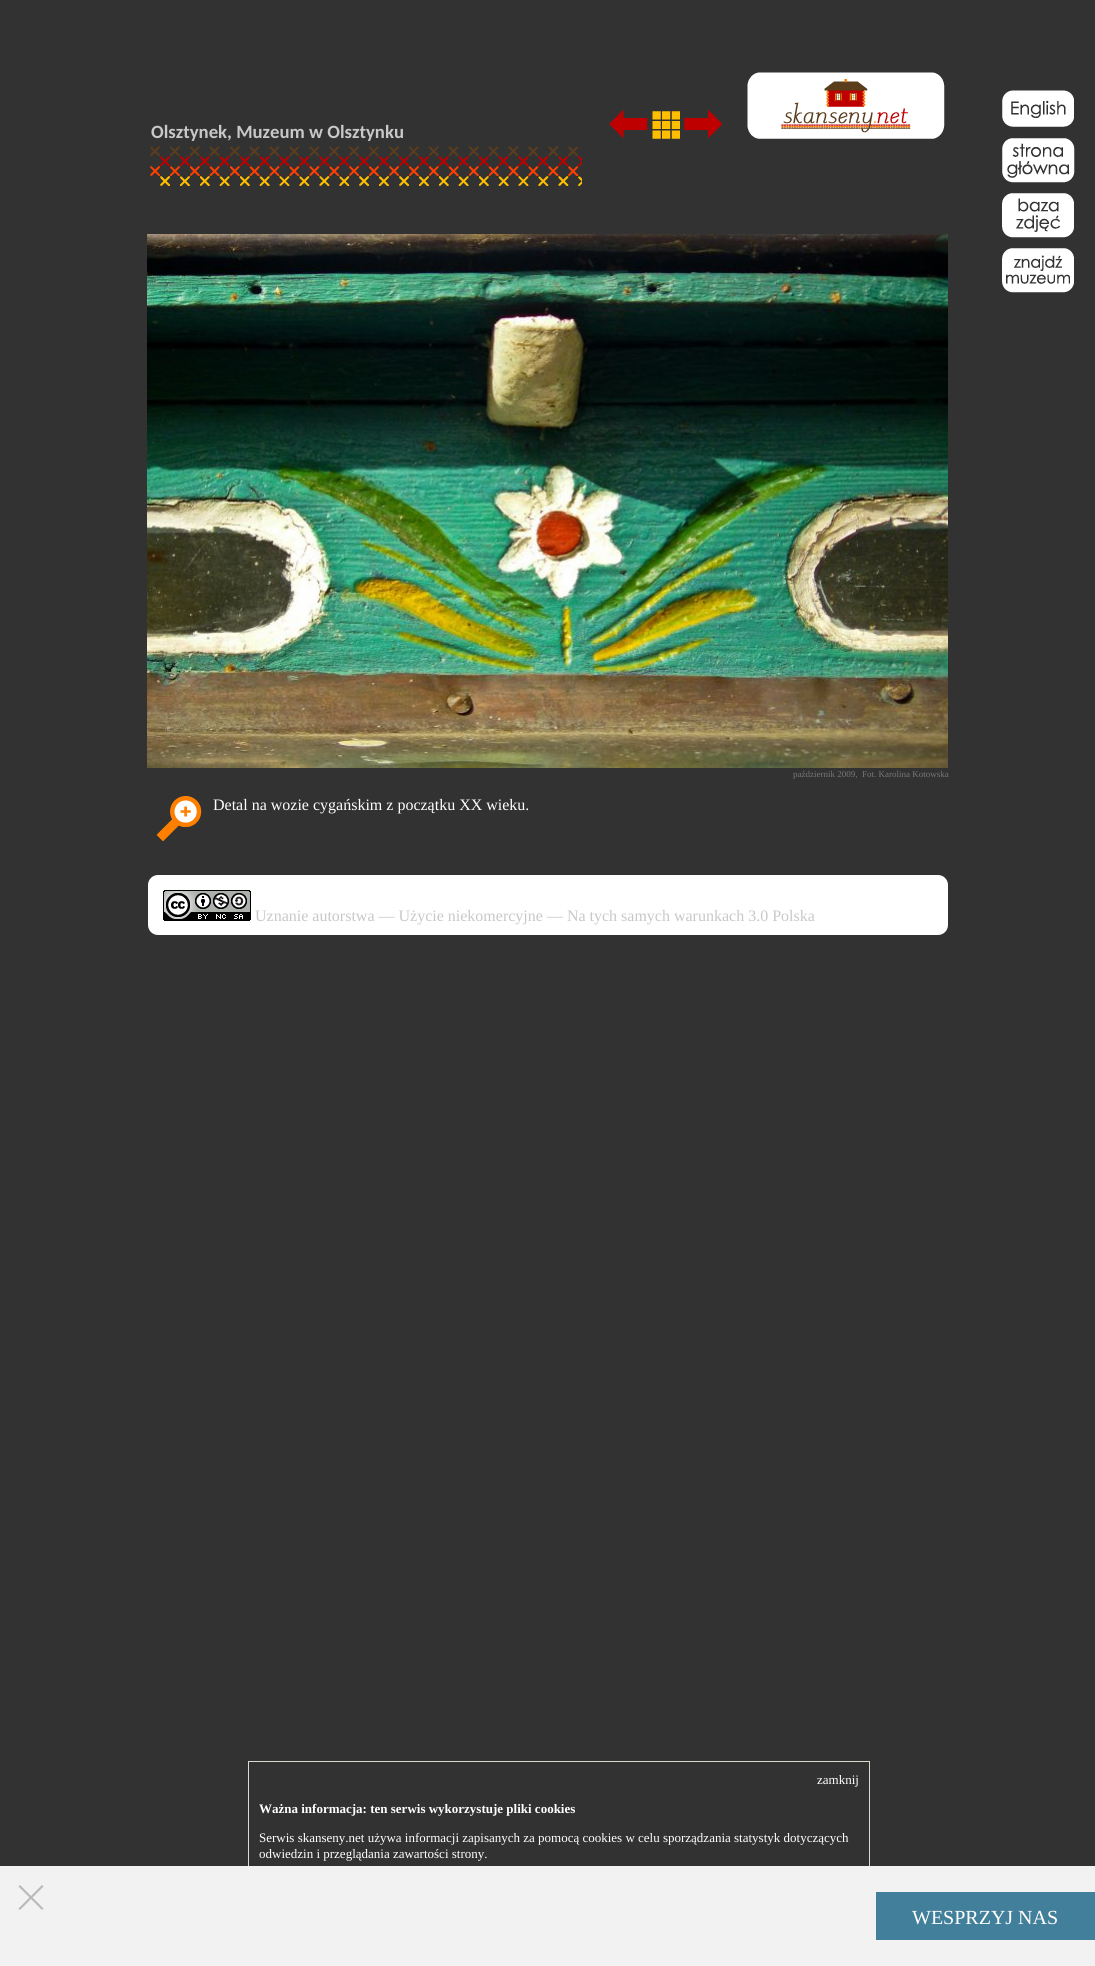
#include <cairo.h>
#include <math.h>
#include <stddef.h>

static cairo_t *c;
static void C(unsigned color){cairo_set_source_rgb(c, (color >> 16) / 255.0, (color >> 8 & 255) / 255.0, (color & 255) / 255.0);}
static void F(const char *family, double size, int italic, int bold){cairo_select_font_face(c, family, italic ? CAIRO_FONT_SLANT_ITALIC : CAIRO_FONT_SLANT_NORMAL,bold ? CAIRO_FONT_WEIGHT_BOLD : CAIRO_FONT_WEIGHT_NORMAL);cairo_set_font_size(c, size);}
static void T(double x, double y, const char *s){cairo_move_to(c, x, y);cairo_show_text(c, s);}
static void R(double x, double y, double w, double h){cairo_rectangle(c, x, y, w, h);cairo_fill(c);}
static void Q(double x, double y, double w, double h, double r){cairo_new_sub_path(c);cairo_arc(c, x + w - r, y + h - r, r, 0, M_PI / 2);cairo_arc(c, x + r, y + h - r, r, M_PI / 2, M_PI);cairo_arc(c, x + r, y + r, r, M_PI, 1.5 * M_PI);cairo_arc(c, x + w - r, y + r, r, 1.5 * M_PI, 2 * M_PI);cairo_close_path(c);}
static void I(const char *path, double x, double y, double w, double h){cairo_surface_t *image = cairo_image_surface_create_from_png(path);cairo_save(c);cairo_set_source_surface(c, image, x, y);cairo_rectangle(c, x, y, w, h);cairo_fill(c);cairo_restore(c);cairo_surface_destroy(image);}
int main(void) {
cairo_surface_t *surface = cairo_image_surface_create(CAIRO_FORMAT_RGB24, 1095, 1966);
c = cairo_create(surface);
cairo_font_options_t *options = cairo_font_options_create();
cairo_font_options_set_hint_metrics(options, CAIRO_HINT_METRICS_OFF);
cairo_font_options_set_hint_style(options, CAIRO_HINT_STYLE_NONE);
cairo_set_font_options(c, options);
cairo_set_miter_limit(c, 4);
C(0x323232);
cairo_paint(c);
F("Carlito",18.75,0,1);
C(0xc8c8c8);
T(151,138,"Olsztynek, Muzeum w Olsztynku");
I("1.png",609,109,39,30);
I("2.png",652,111,28,28);
I("3.png",684,109,39,30);
I("4.png",747,72,198,67);
I("5.png",150,146,432,40);
I("6.png",1002,90,72,37);
I("7.png",1002,138,73,45);
I("8.png",1002,193,72,45);
I("9.png",1002,248,72,45);
I("10.png",147,234,801,534);
F("Liberation Serif",9,0,0);
C(0x777777);
T(793,777,"październik 2009,");
T(862,777,"Fot. Karolina Kotowska");
I("11.png",156,796,46,46);
F("Liberation Serif",16,0,0);
C(0xffffff);
T(213,810,"Detal na wozie cygańskim z początku XX wieku.");
Q(148,875,800,60,10);
cairo_fill(c);
I("12.png",163,890,88,31);
C(0xc8c8c8);
T(255,921,"Uznanie autorstwa — Użycie niekomercyjne — Na tych samych warunkach 3.0 Polska");
cairo_rectangle(c,248.5,1761.5,621,124);
C(0xded9ce);
cairo_set_line_width(c,1);
cairo_stroke(c);
F("Liberation Serif",13,0,0);
C(0xffffff);
T(817,1784,"zamknij");
F("Liberation Serif",13,0,1);
T(259,1813,"Ważna informacja: ten serwis wykorzystuje pliki cookies");
F("Liberation Serif",13,0,0);
T(259,1842,"Serwis skanseny.net używa informacji zapisanych za pomocą cookies w celu sporządzania statystyk dotyczących");
T(259,1858,"odwiedzin i przeglądania zawartości strony.");
C(0xf2f2f2);
R(0,1866,1095,100);
C(0xb9b9b9);
cairo_new_path(c);
cairo_move_to(c,42,1885);
cairo_line_to(c,43.5,1886.5);
cairo_line_to(c,20,1910);
cairo_line_to(c,18.5,1908.5);
cairo_close_path(c);
cairo_fill(c);
cairo_new_path(c);
cairo_move_to(c,18.5,1886.5);
cairo_line_to(c,20,1885);
cairo_line_to(c,43.5,1908.5);
cairo_line_to(c,42,1910);
cairo_close_path(c);
cairo_fill(c);
C(0x427f9b);
R(876,1892,219,48);
F("Liberation Serif",20,0,0);
C(0xffffff);
T(912,1924,"WESPRZYJ NAS");
cairo_surface_write_to_png(surface, "o.png");
cairo_font_options_destroy(options);
cairo_destroy(c);
cairo_surface_destroy(surface);
return 0;
}
